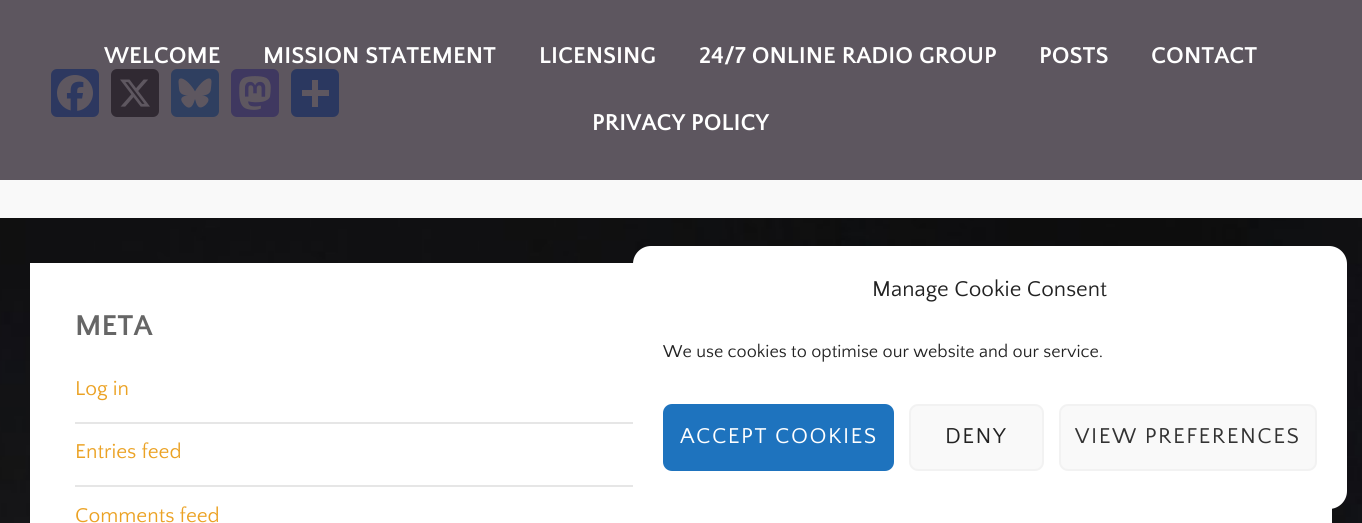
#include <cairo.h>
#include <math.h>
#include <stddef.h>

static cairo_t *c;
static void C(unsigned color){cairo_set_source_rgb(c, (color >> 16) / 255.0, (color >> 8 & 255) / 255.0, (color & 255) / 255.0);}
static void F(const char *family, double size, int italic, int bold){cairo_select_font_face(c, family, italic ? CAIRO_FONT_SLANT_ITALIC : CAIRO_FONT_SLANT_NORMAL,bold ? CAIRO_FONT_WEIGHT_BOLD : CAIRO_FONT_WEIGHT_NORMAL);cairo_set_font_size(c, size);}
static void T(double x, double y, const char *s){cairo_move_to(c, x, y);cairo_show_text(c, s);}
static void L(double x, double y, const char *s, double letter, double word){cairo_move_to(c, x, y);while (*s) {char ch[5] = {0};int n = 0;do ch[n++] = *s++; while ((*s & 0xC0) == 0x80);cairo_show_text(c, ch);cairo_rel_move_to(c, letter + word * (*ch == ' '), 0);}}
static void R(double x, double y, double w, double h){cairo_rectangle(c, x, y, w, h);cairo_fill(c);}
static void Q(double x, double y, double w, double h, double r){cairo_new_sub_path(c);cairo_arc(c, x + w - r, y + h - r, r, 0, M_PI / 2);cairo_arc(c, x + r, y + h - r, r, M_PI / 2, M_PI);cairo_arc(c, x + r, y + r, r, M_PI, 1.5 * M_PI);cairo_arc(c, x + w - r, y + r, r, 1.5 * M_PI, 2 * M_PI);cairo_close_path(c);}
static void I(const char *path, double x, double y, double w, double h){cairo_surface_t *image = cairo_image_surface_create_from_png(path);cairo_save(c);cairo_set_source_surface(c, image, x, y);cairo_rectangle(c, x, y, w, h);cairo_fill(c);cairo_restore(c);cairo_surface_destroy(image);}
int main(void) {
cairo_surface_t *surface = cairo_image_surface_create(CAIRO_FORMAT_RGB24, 1362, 523);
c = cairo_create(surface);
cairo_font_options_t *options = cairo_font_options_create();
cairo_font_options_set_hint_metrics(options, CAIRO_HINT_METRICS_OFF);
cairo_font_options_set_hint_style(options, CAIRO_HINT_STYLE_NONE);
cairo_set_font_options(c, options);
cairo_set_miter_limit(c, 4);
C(0xffffff);
cairo_paint(c);
I("1.png",0,218,1362,305);
C(0xf9f9f9);
R(0,0,1362,218);
C(0x0866ff);
Q(51,69,48,48,6);
cairo_fill(c);
I("2.png",57,75,36,36);
C(0x1a1a1a);
Q(111,69,48,48,6);
cairo_fill(c);
I("3.png",120,79,30,28);
C(0x1285fe);
Q(171,69,48,48,6);
cairo_fill(c);
I("4.png",178,78,34,30);
C(0x6364ff);
Q(231,69,48,48,6);
cairo_fill(c);
I("5.png",239,76,32,34);
C(0x0166ff);
Q(291,69,48,48,6);
cairo_fill(c);
C(0xffffff);
R(312,80,6,27);
R(302,90,27,6);
cairo_set_source_rgba(c,0.212,0.176,0.224,0.8);
R(0,0,1362,180);
F("Quattrocento Sans",24,0,1);
C(0xffffff);
T(104,63,"WELCOME");
T(263,63,"MISSION STATEMENT");
T(539,63,"LICENSING");
T(699,63,"24/7 ONLINE RADIO GROUP");
T(1039,63,"POSTS");
T(1151,63,"CONTACT");
T(592,130,"PRIVACY POLICY");
R(30,263,1302,260);
F("Quattrocento Sans",30,0,1);
C(0x666666);
T(75,335,"META");
C(0xe6e6e6);
R(75,422,558,2);
F("Quattrocento Sans",21,0,0);
C(0xeba224);
T(75,395,"Log in");
C(0xe6e6e6);
R(75,485,558,2);
C(0xeba224);
T(75,458,"Entries feed");
T(75,522,"Comments feed");
C(0xffffff);
Q(633,246,714,263,18);
cairo_fill(c);
F("Quattrocento Sans",22.5,0,0);
C(0x222222);
T(872,296,"Manage Cookie Consent");
F("Quattrocento Sans",18,0,0);
T(663,357,"We use cookies to optimise our website and our service.");
C(0x1e73be);
Q(664,405,229,65,8);
cairo_fill_preserve(c);
cairo_stroke(c);
F("Quattrocento Sans",22.5,0,0);
C(0xffffff);
L(680,443,"ACCEPT COOKIES",1.5,0);
C(0xf9f9f9);
Q(910,405,133,65,8);
cairo_fill_preserve(c);
C(0xf2f2f2);
cairo_stroke(c);
C(0x222222);
L(945,443,"DENY",1.5,0);
C(0xf9f9f9);
Q(1060,405,256,65,8);
cairo_fill_preserve(c);
C(0xf2f2f2);
cairo_stroke(c);
C(0x333333);
L(1075,443,"VIEW PREFERENCES",1.5,0);
cairo_surface_write_to_png(surface, "o.png");
cairo_font_options_destroy(options);
cairo_destroy(c);
cairo_surface_destroy(surface);
return 0;
}
